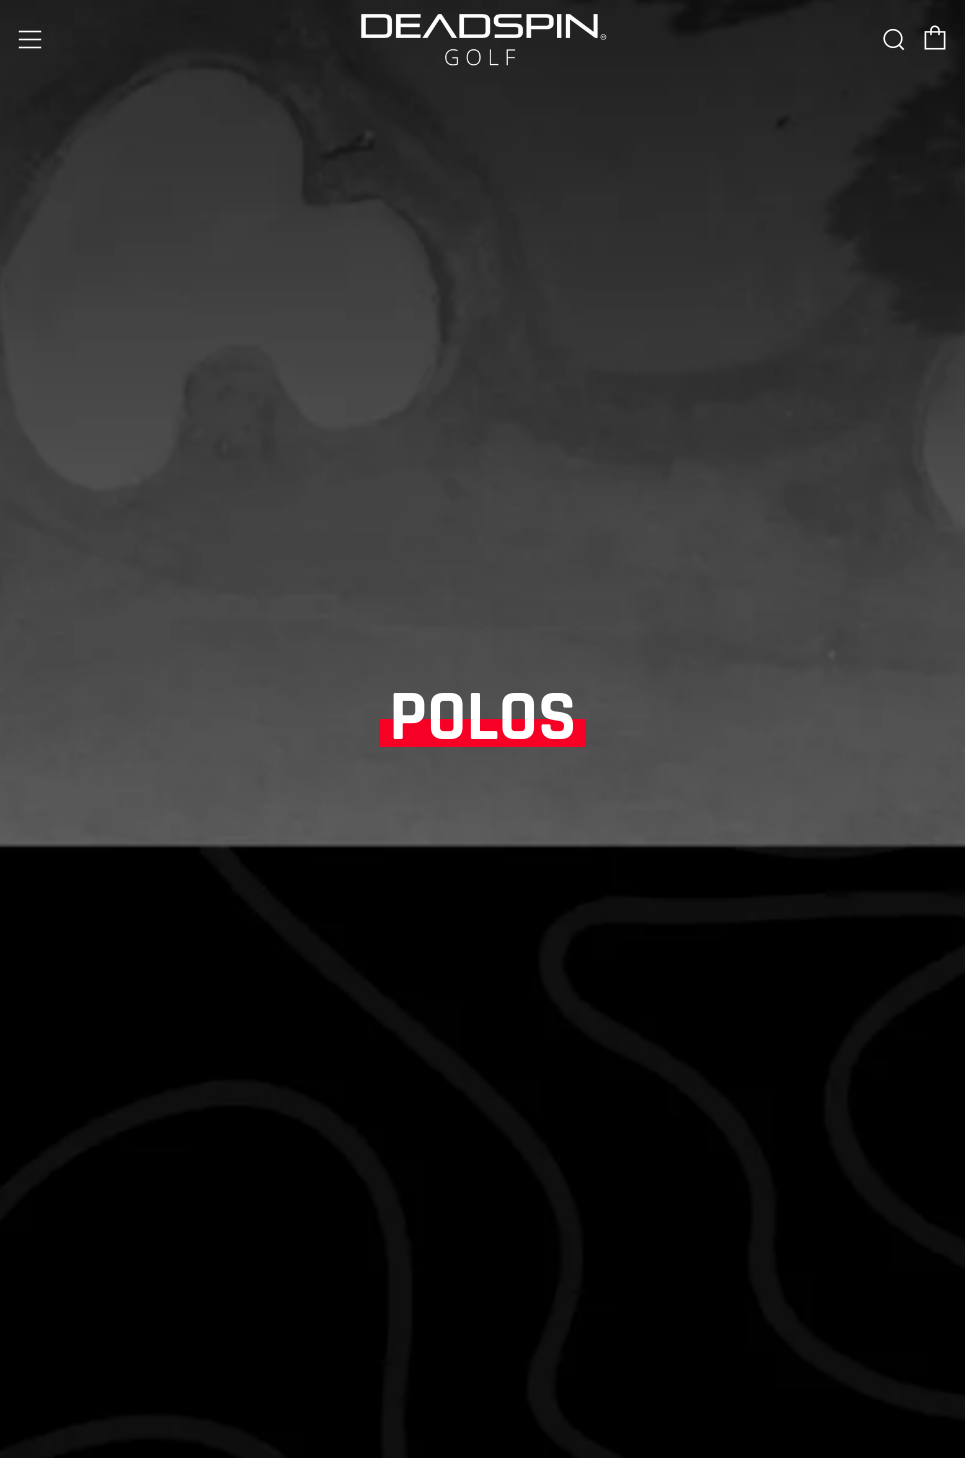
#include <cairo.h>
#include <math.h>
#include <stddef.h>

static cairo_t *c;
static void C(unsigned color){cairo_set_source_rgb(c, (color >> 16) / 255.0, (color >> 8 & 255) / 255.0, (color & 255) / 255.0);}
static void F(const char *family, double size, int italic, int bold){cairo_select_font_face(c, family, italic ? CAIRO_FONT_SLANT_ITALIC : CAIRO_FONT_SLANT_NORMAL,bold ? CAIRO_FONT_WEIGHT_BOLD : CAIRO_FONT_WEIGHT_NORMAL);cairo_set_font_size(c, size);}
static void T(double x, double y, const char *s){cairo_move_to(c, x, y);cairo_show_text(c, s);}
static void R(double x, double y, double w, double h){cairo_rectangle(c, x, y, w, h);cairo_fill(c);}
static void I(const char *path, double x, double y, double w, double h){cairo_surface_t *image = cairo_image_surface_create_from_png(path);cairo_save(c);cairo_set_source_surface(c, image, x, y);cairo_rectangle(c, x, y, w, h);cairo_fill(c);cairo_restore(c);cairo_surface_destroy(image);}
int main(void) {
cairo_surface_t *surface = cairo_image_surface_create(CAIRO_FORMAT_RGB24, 965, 1478);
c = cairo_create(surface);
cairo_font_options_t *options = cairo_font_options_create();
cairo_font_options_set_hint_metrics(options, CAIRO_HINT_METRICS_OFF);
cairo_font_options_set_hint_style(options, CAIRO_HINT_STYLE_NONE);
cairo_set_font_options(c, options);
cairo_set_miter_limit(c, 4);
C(0xffffff);
cairo_paint(c);
I("5.png",0,0,965,1458);
I("1.png",18,30,24,19);
I("2.png",361,14,246,52);
I("3.png",883,28,22,23);
I("4.png",924,25,22,25);
C(0xf70026);
R(379,719,207,28);
F("Rajdhani",71.5,0,1);
C(0xffffff);
T(389,739,"POLOS");
cairo_surface_write_to_png(surface, "o.png");
cairo_font_options_destroy(options);
cairo_destroy(c);
cairo_surface_destroy(surface);
return 0;
}
